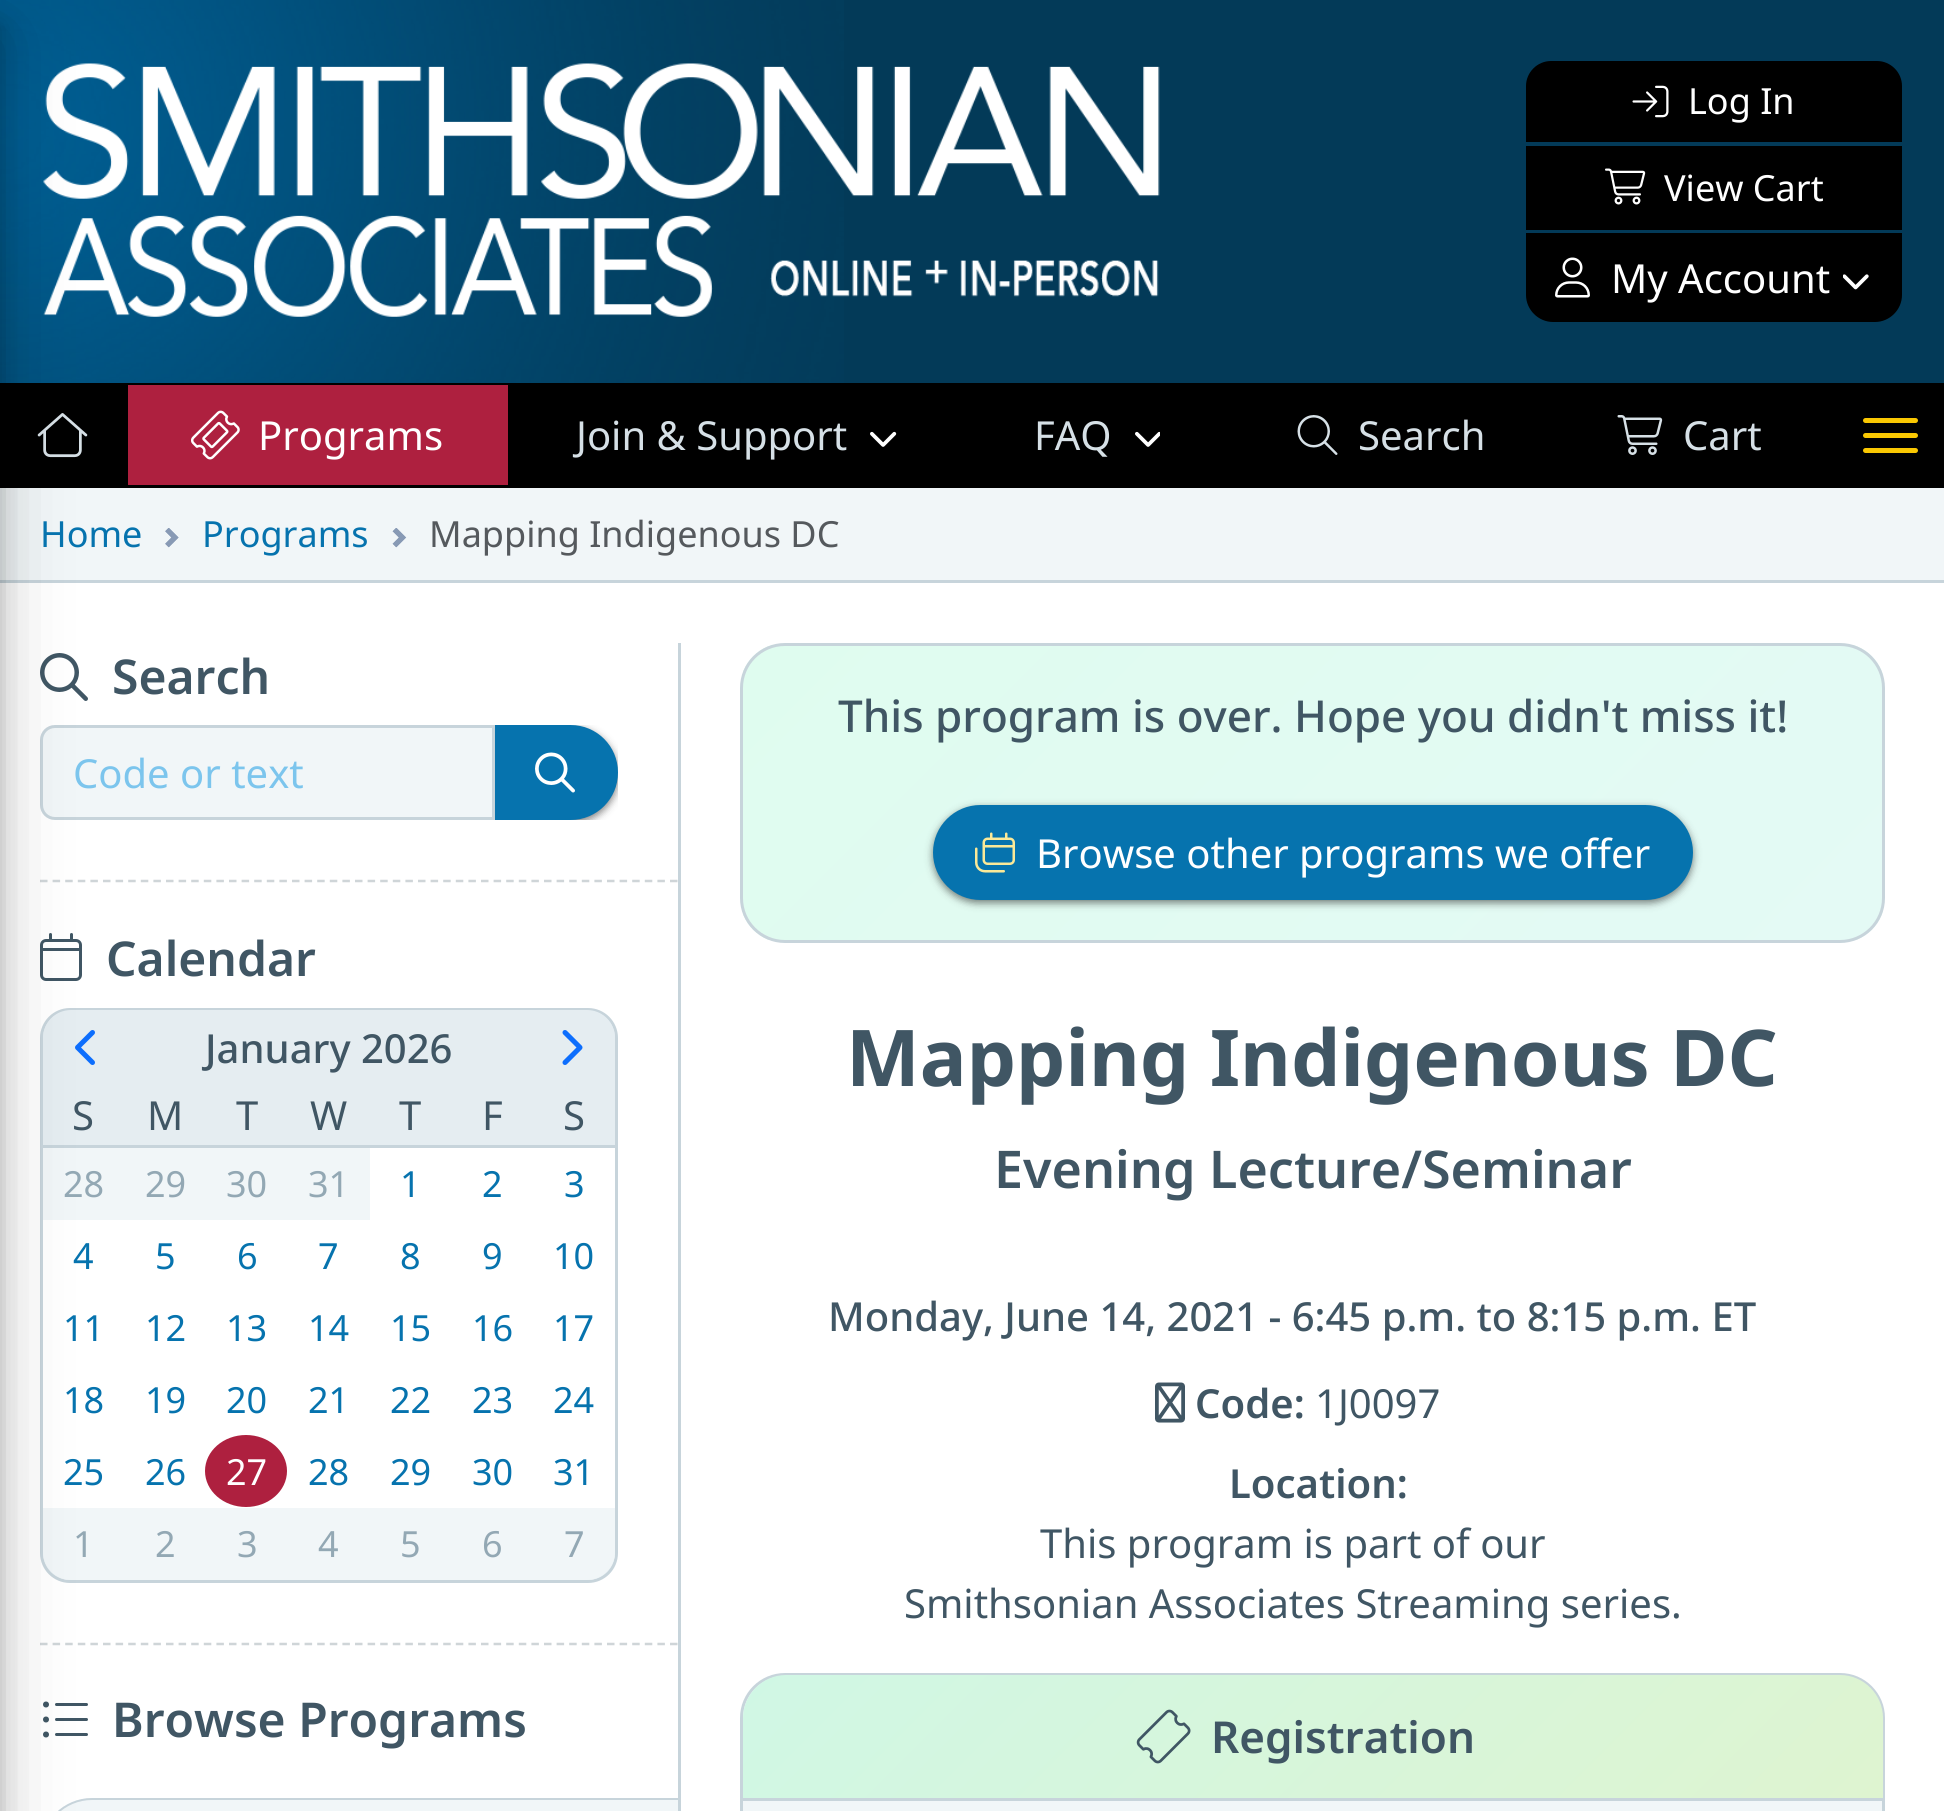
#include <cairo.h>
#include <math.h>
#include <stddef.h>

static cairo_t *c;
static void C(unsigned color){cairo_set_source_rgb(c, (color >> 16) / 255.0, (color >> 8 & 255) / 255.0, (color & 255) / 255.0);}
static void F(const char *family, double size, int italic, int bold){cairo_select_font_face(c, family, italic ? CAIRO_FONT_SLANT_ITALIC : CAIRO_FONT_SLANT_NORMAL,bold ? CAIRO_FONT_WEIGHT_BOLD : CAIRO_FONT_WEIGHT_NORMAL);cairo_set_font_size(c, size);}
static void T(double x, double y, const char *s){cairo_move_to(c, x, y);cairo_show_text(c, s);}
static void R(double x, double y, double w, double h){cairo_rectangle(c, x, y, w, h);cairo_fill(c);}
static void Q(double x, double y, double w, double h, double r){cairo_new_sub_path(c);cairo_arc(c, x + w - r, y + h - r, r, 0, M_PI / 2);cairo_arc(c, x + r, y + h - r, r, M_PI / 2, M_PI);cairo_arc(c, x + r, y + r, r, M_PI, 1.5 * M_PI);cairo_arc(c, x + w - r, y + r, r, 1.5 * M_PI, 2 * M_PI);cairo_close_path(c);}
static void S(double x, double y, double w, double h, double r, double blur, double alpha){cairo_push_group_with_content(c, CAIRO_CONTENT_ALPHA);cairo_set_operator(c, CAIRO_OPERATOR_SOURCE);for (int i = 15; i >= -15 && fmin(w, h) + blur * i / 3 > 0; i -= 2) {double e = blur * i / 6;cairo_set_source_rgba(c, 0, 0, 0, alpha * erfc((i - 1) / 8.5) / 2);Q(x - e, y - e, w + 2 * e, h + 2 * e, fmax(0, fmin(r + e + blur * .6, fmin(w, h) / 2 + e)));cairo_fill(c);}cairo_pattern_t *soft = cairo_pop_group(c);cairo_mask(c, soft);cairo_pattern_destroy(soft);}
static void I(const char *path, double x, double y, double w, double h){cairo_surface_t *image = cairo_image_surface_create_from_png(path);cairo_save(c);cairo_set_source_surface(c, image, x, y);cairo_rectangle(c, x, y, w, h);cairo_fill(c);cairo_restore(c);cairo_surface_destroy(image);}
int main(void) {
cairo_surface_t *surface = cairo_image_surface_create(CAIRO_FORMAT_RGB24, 1944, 1811);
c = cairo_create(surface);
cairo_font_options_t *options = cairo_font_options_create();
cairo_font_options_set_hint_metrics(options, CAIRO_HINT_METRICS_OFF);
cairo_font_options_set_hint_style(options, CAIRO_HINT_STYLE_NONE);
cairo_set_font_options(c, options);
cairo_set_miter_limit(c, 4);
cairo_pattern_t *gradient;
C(0xffffff);
cairo_paint(c);
C(0x033a58);
R(0,0,1944,383);
I("1.png",0,0,844,383);
C(0x000000);
R(0,383,1944,105);
I("7.png",37,413,51,45);
C(0xf1f6f8);
R(0,488,1944,92);
C(0xc7d4db);
R(0,580,1944,3);
C(0x000000);
S(-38,25,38,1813,0,12.5,.18);
I("2.png",43,63,1117,254);
I("15.png",40,653,48,48);
cairo_save(c);
cairo_rectangle(c,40,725,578,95);
cairo_clip(c);
C(0x171717);
S(493,728,125,95,47.5,4,.55);
cairo_restore(c);
C(0x0673ae);
cairo_new_path(c);
cairo_move_to(c,494.5,726.5);
cairo_line_to(c,570.5,726.5);
cairo_curve_to(c,596,726.5,616.5,747,616.5,772.5);
cairo_curve_to(c,616.5,798,596,818.5,570.5,818.5);
cairo_line_to(c,494.5,818.5);
cairo_close_path(c);
cairo_fill_preserve(c);
cairo_set_line_width(c,3);
cairo_stroke(c);
C(0xf1f6f8);
cairo_new_path(c);
cairo_move_to(c,55,726.5);
cairo_line_to(c,493.5,726.5);
cairo_line_to(c,493.5,818.5);
cairo_line_to(c,55,818.5);
cairo_curve_to(c,47.5,818.5,41.5,812.5,41.5,805);
cairo_line_to(c,41.5,740);
cairo_curve_to(c,41.5,732.5,47.5,726.5,55,726.5);
cairo_close_path(c);
cairo_fill_preserve(c);
C(0xc7d4db);
cairo_stroke(c);
cairo_new_path(c);
cairo_move_to(c,40,881);
cairo_line_to(c,677.5,881);
C(0xcfd5d8);
cairo_set_line_width(c,2.5);
cairo_set_dash(c,(double[]){7.5,5.1},2,0);
cairo_stroke(c);
I("17.png",40,933,42,48);
C(0xe5edf1);
Q(41.5,1009.5,575,572,28.5);
cairo_fill_preserve(c);
C(0xc7d4db);
cairo_set_line_width(c,3);
cairo_set_dash(c,NULL,0,0);
cairo_stroke(c);
C(0xe5edf1);
Q(43,1010,572,570,28);
cairo_fill(c);
I("18.png",75,1030,20,35);
C(0xc7d4db);
R(43,1145,572,3);
C(0xf1f6f8);
R(43,1148,327,72);
C(0xffffff);
R(43,1220,572,73);
R(43,1293,572,72);
R(43,1365,572,70);
R(43,1435,572,73);
C(0xf1f6f8);
cairo_new_path(c);
cairo_move_to(c,43,1508);
cairo_line_to(c,125,1508);
cairo_line_to(c,125,1580);
cairo_line_to(c,71,1580);
cairo_curve_to(c,55.5,1580,43,1567.5,43,1552);
cairo_close_path(c);
cairo_fill(c);
cairo_new_path(c);
cairo_move_to(c,40,1644);
cairo_line_to(c,677.5,1644);
C(0xcfd5d8);
cairo_set_line_width(c,2.5);
cairo_set_dash(c,(double[]){7.5,5.1},2,0);
cairo_stroke(c);
I("20.png",43,1701,45,37);
C(0xf1f6f8);
cairo_new_path(c);
cairo_move_to(c,92.5,1798);
cairo_line_to(c,678,1798);
cairo_line_to(c,678,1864);
cairo_line_to(c,92.5,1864);
cairo_curve_to(c,63.5,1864,40,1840.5,40,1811.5);
cairo_line_to(c,40,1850.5);
cairo_curve_to(c,40,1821.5,63.5,1798,92.5,1798);
cairo_close_path(c);
cairo_fill(c);
C(0xc7d4db);
cairo_set_fill_rule(c,CAIRO_FILL_RULE_EVEN_ODD);
cairo_new_path(c);
cairo_move_to(c,92,1798);
cairo_line_to(c,678,1798);
cairo_line_to(c,678,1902);
cairo_line_to(c,92,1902);
cairo_curve_to(c,64,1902,40,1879,40,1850);
cairo_curve_to(c,40,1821,64,1798,92,1798);
cairo_close_path(c);
cairo_move_to(c,92,1800);
cairo_line_to(c,678,1800);
cairo_line_to(c,678,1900);
cairo_line_to(c,92,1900);
cairo_curve_to(c,65,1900,42,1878,42,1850);
cairo_curve_to(c,42,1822,65,1800,92,1800);
cairo_close_path(c);
cairo_fill(c);
C(0x000000);
S(-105,35,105,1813,0,35,.21);
C(0x000000);
cairo_new_path(c);
cairo_move_to(c,1551,59.5);
cairo_line_to(c,1877,59.5);
cairo_curve_to(c,1891.5,59.5,1903.5,71.5,1903.5,86);
cairo_line_to(c,1903.5,143.5);
cairo_line_to(c,1524.5,143.5);
cairo_line_to(c,1524.5,86);
cairo_curve_to(c,1524.5,71.5,1536.5,59.5,1551,59.5);
cairo_close_path(c);
cairo_fill_preserve(c);
C(0x033a58);
cairo_set_line_width(c,3);
cairo_set_dash(c,NULL,0,0);
cairo_stroke(c);
I("3.png",1632,85,37,33);
F("Noto Sans",36,0,0);
C(0xffffff);
T(1688,114,"Log In");
C(0x000000);
R(1526,146,376,84);
I("4.png",1605,168,41,37);
C(0xffffff);
T(1664,201,"View Cart");
C(0x000000);
cairo_new_path(c);
cairo_move_to(c,1524.5,231.5);
cairo_line_to(c,1903.5,231.5);
cairo_line_to(c,1903.5,295);
cairo_curve_to(c,1903.5,310.5,1890.5,323.5,1875,323.5);
cairo_line_to(c,1553,323.5);
cairo_curve_to(c,1537.5,323.5,1524.5,310.5,1524.5,295);
cairo_close_path(c);
cairo_fill_preserve(c);
C(0x033a58);
cairo_stroke(c);
I("5.png",1555,257,35,41);
F("Noto Sans",40,0,0);
C(0xffffff);
T(1611,293,"My Account");
I("6.png",1843,274,26,16);
C(0xae203f);
R(128,385,380,100);
I("8.png",191,410,49,50);
C(0xffffff);
T(258,450,"Programs");
C(0xd6e0e6);
T(576,450,"Join & Support");
I("9.png",870,431,27,16);
T(1034,450,"FAQ");
I("10.png",1135,431,25,16);
I("11.png",1297,415,41,40);
T(1358,450,"Search");
I("12.png",1617,415,46,40);
T(1683,450,"Cart");
C(0xfac802);
Q(1863,433,55,5,2.5);
cairo_fill(c);
Q(1863,418,55,5,2.5);
cairo_fill(c);
Q(1863,448,55,5,2.5);
cairo_fill(c);
F("Noto Sans",36,0,0);
C(0x0673ae);
T(40,547,"Home");
I("13.png",165,528,14,20);
T(202,547,"Programs");
I("14.png",392,528,15,20);
C(0x55595d);
T(429,547,"Mapping Indigenous DC");
C(0xc7d4db);
R(678,643,3,1168);
F("Noto Sans SemiBold",48,0,0);
C(0x405664);
T(112,694,"Search");
F("Noto Sans",40,0,0);
C(0x7cc5ed);
T(73,788,"Code or text");
I("16.png",535,752,40,41);
F("Noto Sans SemiBold",48,0,0);
C(0x405664);
T(106,976,"Calendar");
F("Noto Sans Medium",40,0,0);
T(205,1063,"January 2026");
I("19.png",562,1030,21,35);
F("Noto Sans",40,0,0);
T(72,1130,"S");
T(147,1130,"M");
T(236,1130,"T");
T(310,1130,"W");
T(399,1130,"T");
T(482,1130,"F");
T(563,1130,"S");
F("Noto Sans",36,0,0);
C(0x93a8b4);
T(63,1197,"28");
T(145,1197,"29");
T(226,1197,"30");
T(308,1197,"31");
C(0xffffff);
R(370,1148,245,72);
C(0x0673ae);
T(400,1197,"1");
T(482,1197,"2");
T(564,1197,"3");
T(73,1269,"4");
T(155,1269,"5");
T(237,1269,"6");
T(318,1269,"7");
T(400,1269,"8");
T(482,1269,"9");
T(553,1269,"10");
T(63,1341,"11");
T(145,1341,"12");
T(226,1341,"13");
T(308,1341,"14");
T(390,1341,"15");
T(472,1341,"16");
T(553,1341,"17");
T(63,1413,"18");
T(145,1413,"19");
T(226,1413,"20");
T(308,1413,"21");
T(390,1413,"22");
T(472,1413,"23");
T(553,1413,"24");
T(63,1485,"25");
T(145,1485,"26");
C(0xae203f);
cairo_new_path(c);
cairo_move_to(c,246,1435);
cairo_curve_to(c,268.5,1435,287,1451,287,1471);
cairo_curve_to(c,287,1491,268.5,1507,246,1507);
cairo_curve_to(c,223.5,1507,205,1491,205,1471);
cairo_curve_to(c,205,1451,223.5,1435,246,1435);
cairo_close_path(c);
cairo_fill(c);
C(0xffffff);
T(226,1485,"27");
C(0x0673ae);
T(308,1485,"28");
T(390,1485,"29");
T(472,1485,"30");
T(553,1485,"31");
C(0x93a8b4);
T(73,1557,"1");
C(0xf1f6f8);
R(125,1508,408,72);
C(0x93a8b4);
T(155,1557,"2");
T(237,1557,"3");
T(318,1557,"4");
T(400,1557,"5");
T(482,1557,"6");
C(0xf1f6f8);
cairo_new_path(c);
cairo_move_to(c,533,1508);
cairo_line_to(c,615,1508);
cairo_line_to(c,615,1552);
cairo_curve_to(c,615,1567.5,602.5,1580,587,1580);
cairo_line_to(c,533,1580);
cairo_close_path(c);
cairo_fill(c);
C(0x93a8b4);
T(564,1557,"7");
F("Noto Sans SemiBold",48,0,0);
C(0x405664);
T(112,1737,"Browse Programs");
cairo_save(c);
cairo_set_fill_rule(c,CAIRO_FILL_RULE_WINDING);
Q(740,643,1145,300,45);
cairo_clip(c);
gradient = cairo_pattern_create_linear(954,434,1671,1151);
cairo_pattern_add_color_stop_rgba(gradient,0,0.875,0.988,0.937,1);
cairo_pattern_add_color_stop_rgba(gradient,1,0.894,0.98,0.961,1);
cairo_set_source(c,gradient);
cairo_pattern_destroy(gradient);
R(743,645,1140,295);
cairo_restore(c);
Q(741.5,644.5,1142,297,43.5);
C(0xc7d4db);
cairo_stroke(c);
F("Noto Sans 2 Medium",44,0,0);
C(0x405664);
T(838,732,"This program is over. Hope you didn't miss it!");
C(0x171717);
S(933,808,760,95,47.5,4,.55);
C(0x0673ae);
Q(934.5,806.5,757,92,46);
cairo_fill_preserve(c);
cairo_stroke(c);
I("21.png",975,832,40,41);
F("Noto Sans",40,0,0);
C(0xffffff);
T(1036,868,"Browse other programs we offer");
F("Noto Sans",78.25,0,1);
C(0x405664);
T(846,1086,"Mapping Indigenous DC");
F("Noto Sans 2 SemiBold",52,0,0);
T(994,1188,"Evening Lecture/Seminar");
F("Noto Sans Medium",40,0,0);
T(828,1331,"Monday, June 14, 2021 - 6:45 p.m. to 8:15 p.m. ET");
I("22.png",1155,1382,30,41);
F("Noto Sans SemiBold",40,0,0);
T(1195,1418,"Code:");
F("Noto Sans",40,0,0);
T(1315,1418,"1J0097");
F("Noto Sans SemiBold",40,0,0);
T(1229,1498,"Location:");
F("Noto Sans",40,0,0);
T(1040,1558,"This program is part of our");
T(904,1618,"Smithsonian Associates Streaming series.");
C(0xf1f6f8);
Q(741.5,1674.5,1142,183,43.5);
cairo_fill_preserve(c);
C(0xc7d4db);
cairo_stroke(c);
gradient = cairo_pattern_create_linear(997,1421,1628,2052);
cairo_pattern_add_color_stop_rgba(gradient,0,0.816,0.969,0.898,1);
cairo_pattern_add_color_stop_rgba(gradient,1,0.871,0.957,0.816,1);
cairo_set_source(c,gradient);
cairo_pattern_destroy(gradient);
cairo_new_path(c);
cairo_move_to(c,786,1675);
cairo_line_to(c,1840,1675);
cairo_curve_to(c,1863.5,1675,1883,1694.5,1883,1718);
cairo_line_to(c,1883,1798);
cairo_line_to(c,743,1798);
cairo_line_to(c,743,1718);
cairo_curve_to(c,743,1694.5,762.5,1675,786,1675);
cairo_close_path(c);
cairo_fill(c);
C(0xc7d4db);
R(743,1798,1140,3);
I("23.png",1136,1709,55,55);
F("Noto Sans 2 SemiBold",44,0,0);
C(0x405664);
T(1211,1753,"Registration");
cairo_surface_write_to_png(surface, "o.png");
cairo_font_options_destroy(options);
cairo_destroy(c);
cairo_surface_destroy(surface);
return 0;
}
